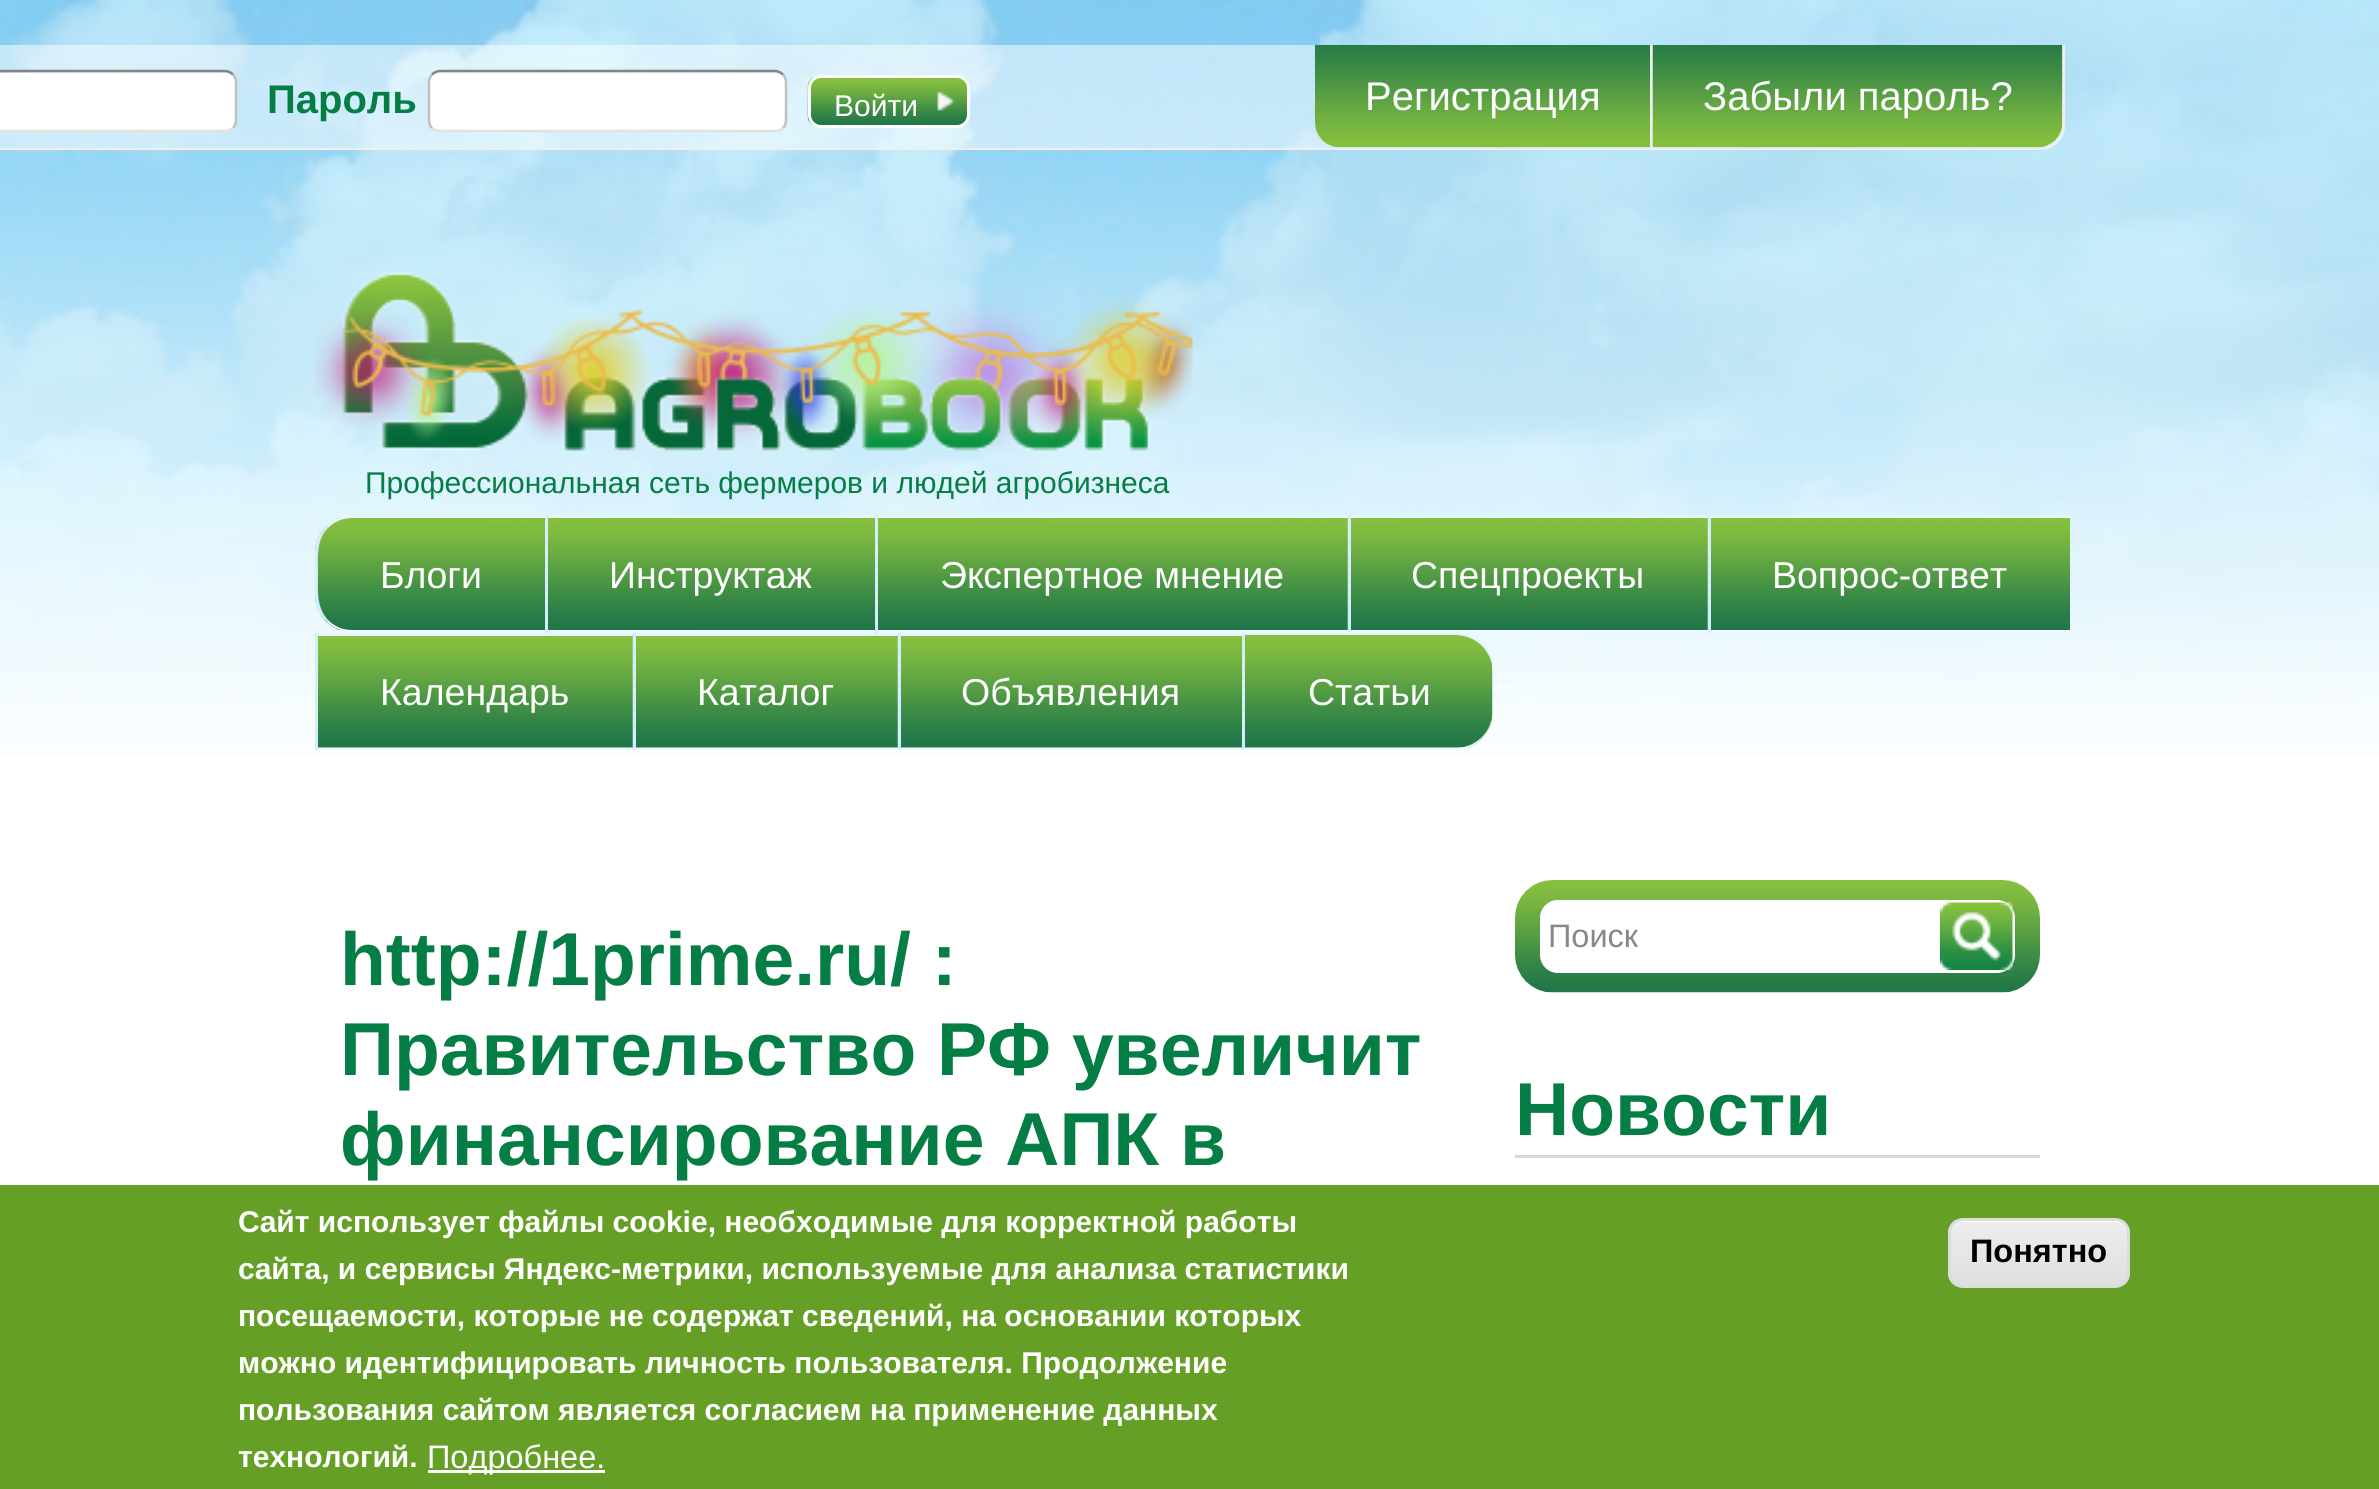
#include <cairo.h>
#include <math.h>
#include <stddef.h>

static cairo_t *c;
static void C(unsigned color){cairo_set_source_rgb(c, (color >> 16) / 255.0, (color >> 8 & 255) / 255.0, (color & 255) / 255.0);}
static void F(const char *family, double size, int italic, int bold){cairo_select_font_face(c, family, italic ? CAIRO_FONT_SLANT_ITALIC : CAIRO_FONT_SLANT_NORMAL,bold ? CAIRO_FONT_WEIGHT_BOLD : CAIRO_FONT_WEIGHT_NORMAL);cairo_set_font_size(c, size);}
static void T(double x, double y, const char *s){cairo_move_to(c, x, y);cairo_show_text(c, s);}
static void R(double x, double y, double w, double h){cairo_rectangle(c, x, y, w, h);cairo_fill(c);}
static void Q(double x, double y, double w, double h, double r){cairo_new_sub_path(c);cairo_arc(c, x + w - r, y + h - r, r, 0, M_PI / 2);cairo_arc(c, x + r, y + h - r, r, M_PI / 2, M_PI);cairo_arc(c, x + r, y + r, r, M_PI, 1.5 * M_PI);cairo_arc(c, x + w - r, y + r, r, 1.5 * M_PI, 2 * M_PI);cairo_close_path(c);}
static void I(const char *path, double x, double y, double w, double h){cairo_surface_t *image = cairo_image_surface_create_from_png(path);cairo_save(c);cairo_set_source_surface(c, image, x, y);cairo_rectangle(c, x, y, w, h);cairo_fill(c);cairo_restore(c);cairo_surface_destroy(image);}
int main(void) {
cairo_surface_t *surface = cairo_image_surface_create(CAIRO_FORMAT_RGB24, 2379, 1489);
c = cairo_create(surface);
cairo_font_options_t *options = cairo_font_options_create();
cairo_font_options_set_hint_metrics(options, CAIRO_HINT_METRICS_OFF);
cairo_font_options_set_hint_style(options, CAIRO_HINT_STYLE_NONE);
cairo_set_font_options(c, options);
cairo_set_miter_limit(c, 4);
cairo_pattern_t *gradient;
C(0xffffff);
cairo_paint(c);
I("1.png",0,0,2379,755);
cairo_set_source_rgba(c,1,1,1,0.5);
cairo_new_path(c);
cairo_move_to(c,-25,45);
cairo_line_to(c,2065,45);
cairo_line_to(c,2065,125);
cairo_curve_to(c,2065,139,2054,150,2040,150);
cairo_line_to(c,0,150);
cairo_curve_to(c,-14,150,-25,139,-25,125);
cairo_close_path(c);
cairo_fill(c);
C(0xefefef);
cairo_set_fill_rule(c,CAIRO_FILL_RULE_EVEN_ODD);
cairo_new_path(c);
cairo_move_to(c,-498,45);
cairo_line_to(c,2065,45);
cairo_line_to(c,2065,125);
cairo_curve_to(c,2065,139,2054,150,2040,150);
cairo_line_to(c,-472,150);
cairo_curve_to(c,-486,150,-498,139,-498,125);
cairo_close_path(c);
cairo_move_to(c,-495,45);
cairo_line_to(c,2062,45);
cairo_line_to(c,2062,125);
cairo_curve_to(c,2062,137,2052,148,2040,148);
cairo_line_to(c,-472,148);
cairo_curve_to(c,-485,148,-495,137,-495,125);
cairo_close_path(c);
cairo_fill(c);
C(0xffffff);
Q(-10,73,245,57,10);
cairo_fill(c);
cairo_new_path(c);
cairo_move_to(c,-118,74.5);
cairo_curve_to(c,-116,72.5,-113,71,-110,71);
cairo_line_to(c,225,71);
cairo_curve_to(c,228,71,231,72.5,233,74.5);
C(0x848484);
cairo_set_line_width(c,2.5);
cairo_stroke(c);
cairo_new_path(c);
cairo_move_to(c,233,74.5);
cairo_curve_to(c,235,76.5,236,79.5,236,82.5);
cairo_line_to(c,236,120);
cairo_curve_to(c,236,123,235,126,233,128);
C(0xc1c1c1);
cairo_stroke(c);
cairo_new_path(c);
cairo_move_to(c,233,128);
cairo_curve_to(c,231,130,228,131,225,131);
cairo_line_to(c,-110,131);
cairo_curve_to(c,-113,131,-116,130,-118,128);
C(0xe1e1e1);
cairo_stroke(c);
F("Liberation Sans",40,0,1);
C(0x057e45);
T(267,113,"Пароль");
C(0xffffff);
Q(430,73,355,57,10);
cairo_fill(c);
cairo_new_path(c);
cairo_move_to(c,432,74.5);
cairo_curve_to(c,434,72.5,437,71,440,71);
cairo_line_to(c,775,71);
cairo_curve_to(c,778,71,781,72.5,783,74.5);
C(0x848484);
cairo_stroke(c);
cairo_new_path(c);
cairo_move_to(c,783,74.5);
cairo_curve_to(c,785,76.5,786,79.5,786,82.5);
cairo_line_to(c,786,120);
cairo_curve_to(c,786,123,785,126,783,128);
C(0xc1c1c1);
cairo_stroke(c);
cairo_new_path(c);
cairo_move_to(c,783,128);
cairo_curve_to(c,781,130,778,131,775,131);
cairo_line_to(c,440,131);
cairo_curve_to(c,437,131,434,130,432,128);
C(0xe1e1e1);
cairo_stroke(c);
cairo_new_path(c);
cairo_move_to(c,432,128);
cairo_curve_to(c,430,126,429,123,429,120);
cairo_line_to(c,429,82.5);
cairo_curve_to(c,429,79.5,430,76.5,432,74.5);
C(0xc1c1c1);
cairo_stroke(c);
I("2.png",807,77,161,48);
Q(809.5,76.5,159,50,11.5);
C(0xffffff);
cairo_set_line_width(c,3);
cairo_stroke(c);
F("Liberation Sans",30,0,0);
T(834,116,"Войти");
I("3.png",1315,45,335,103);
C(0xefefef);
R(1650,45,3,103);
F("Liberation Sans",40,0,0);
C(0xffffff);
T(1365,110,"Регистрация");
I("4.png",1652,45,411,103);
T(1703,110,"Забыли пароль?");
I("5.png",315,272,878,180);
F("Liberation Sans",30,0,0);
C(0x057e45);
T(365,493,"Профессиональная сеть фермеров и людей агробизнеса");
I("6.png",315,517,230,113);
C(0xe6f6fc);
cairo_set_fill_rule(c,CAIRO_FILL_RULE_WINDING);
cairo_new_path(c);
cairo_move_to(c,352,515);
cairo_curve_to(c,342,515,333,519,326,526);
cairo_line_to(c,328,528);
cairo_curve_to(c,334,522,342,518,352,518);
cairo_line_to(c,545,518);
cairo_line_to(c,545,515);
cairo_close_path(c);
cairo_fill(c);
C(0xf0fbff);
cairo_new_path(c);
cairo_move_to(c,545,632);
cairo_line_to(c,545,630);
cairo_line_to(c,352,630);
cairo_curve_to(c,342,630,334,626,328,620);
cairo_line_to(c,326,621);
cairo_curve_to(c,333,628,342,632,352,632);
cairo_close_path(c);
cairo_fill(c);
C(0xd2edfb);
cairo_new_path(c);
cairo_move_to(c,315,552);
cairo_line_to(c,315,595);
cairo_curve_to(c,315,606,319,615,326,621);
cairo_line_to(c,328,620);
cairo_curve_to(c,316,607,318,590,318,574);
cairo_curve_to(c,318,557,316,540,328,528);
cairo_line_to(c,326,526);
cairo_curve_to(c,319,533,315,542,315,552);
cairo_close_path(c);
cairo_fill(c);
F("Liberation Sans",37.5,0,0);
C(0xffffff);
T(380,588,"Блоги");
I("7.png",548,518,327,112);
C(0xe6f6fc);
R(545,515,803,3);
C(0xf0fbff);
R(559,630,140,3);
C(0xd2edfb);
R(545,515,3,118);
C(0xffffff);
T(609,588,"Инструктаж");
I("8.png",878,518,470,112);
C(0xf0fbff);
R(875,630,1195,3);
C(0xd2edfb);
R(875,515,3,118);
C(0xffffff);
T(940,588,"Экспертное мнение");
I("9.png",1347,517,361,113);
C(0xe6f6fc);
R(1348,515,360,3);
C(0xd2edfb);
R(1348,515,3,118);
C(0xffffff);
T(1411,588,"Спецпроекты");
I("10.png",1707,517,363,113);
C(0xe6f6fc);
R(1708,515,362,3);
C(0xd2edfb);
R(1708,515,3,118);
C(0xffffff);
T(1772,588,"Вопрос-ответ");
I("11.png",318,636,315,112);
C(0xe6f6fc);
R(315,633,318,3);
C(0xf0fbff);
R(315,748,928,2);
C(0xd2edfb);
R(315,633,3,117);
C(0xffffff);
T(380,705,"Календарь");
I("12.png",632,635,266,113);
C(0xe6f6fc);
R(633,633,265,3);
C(0xd2edfb);
R(633,633,3,117);
C(0xffffff);
T(697,705,"Каталог");
I("13.png",897,635,345,113);
C(0xe6f6fc);
R(898,633,345,3);
C(0xd2edfb);
R(898,633,3,117);
C(0xffffff);
T(961,705,"Объявления");
I("14.png",1245,635,248,113);
C(0xe6f6fc);
cairo_new_path(c);
cairo_move_to(c,1245,635);
cairo_line_to(c,1455,635);
cairo_curve_to(c,1476,635,1492,651,1492,670);
cairo_curve_to(c,1492,651,1479,635,1461,632);
cairo_line_to(c,1242,632);
cairo_close_path(c);
cairo_fill(c);
C(0xf0fbff);
cairo_new_path(c);
cairo_move_to(c,1242,750);
cairo_line_to(c,1455,750);
cairo_curve_to(c,1476,750,1492,733,1492,712);
cairo_curve_to(c,1492,732,1476,748,1455,748);
cairo_line_to(c,1245,748);
cairo_close_path(c);
cairo_fill(c);
C(0xd2edfb);
cairo_new_path(c);
cairo_move_to(c,1245,635);
cairo_line_to(c,1245,748);
cairo_line_to(c,1242,750);
cairo_line_to(c,1242,632);
cairo_close_path(c);
cairo_fill(c);
C(0xffffff);
T(1308,705,"Статьи");
F("Liberation Sans",75,0,1);
C(0x057e45);
T(340,985,"http://1prime.ru/ :");
T(340,1075,"Правительство РФ увеличит");
T(340,1165,"финансирование АПК в");
I("15.png",1515,880,525,113);
C(0xffffff);
Q(1540,900,475,73,18);
cairo_fill(c);
F("Liberation Sans",32.5,0,0);
C(0x888888);
T(1548,947,"Поиск");
I("16.png",1940,902,73,68);
C(0xd3d9dd);
R(1515,1155,525,3);
F("Liberation Sans",75,0,1);
C(0x057e45);
T(1515,1135,"Новости");
C(0x659f26);
R(0,1185,2379,304);
F("Liberation Sans",30,0,1);
C(0xffffff);
T(238,1232,"Сайт использует файлы cookie, необходимые для корректной работы");
T(238,1279,"сайта, и сервисы Яндекс-метрики, используемые для анализа статистики");
T(238,1326,"посещаемости, которые не содержат сведений, на основании которых");
T(238,1373,"можно идентифицировать личность пользователя. Продолжение");
T(238,1420,"пользования сайтом является согласием на применение данных");
T(238,1467,"технологий.");
R(428,1470,177,3);
F("Liberation Sans",32.5,0,0);
T(427,1468,"Подробнее.");
cairo_save(c);
Q(1948,1218,182,70,15);
cairo_clip(c);
gradient = cairo_pattern_create_linear(2039,1220,2039,1285);
cairo_pattern_add_color_stop_rgba(gradient,.05,0.929,0.929,0.929,1);
cairo_pattern_add_color_stop_rgba(gradient,1,0.875,0.875,0.875,1);
cairo_set_source(c,gradient);
cairo_pattern_destroy(gradient);
R(1948,1220,182,65);
cairo_restore(c);
cairo_new_path(c);
cairo_move_to(c,1962,1222);
cairo_line_to(c,2115,1222);
cairo_curve_to(c,2122,1222,2128,1228,2128,1235);
cairo_curve_to(c,2128,1214,2104,1220,2090,1220);
cairo_line_to(c,1988,1220);
cairo_curve_to(c,1974,1220,1950,1214,1950,1235);
cairo_curve_to(c,1950,1228,1956,1222,1962,1222);
cairo_close_path(c);
cairo_fill(c);
Q(1949.5,1219.5,179,67,13.5);
C(0xdcdcdc);
cairo_stroke(c);
F("Liberation Sans",32.5,0,1);
C(0x000000);
T(1970,1262,"Понятно");
cairo_surface_write_to_png(surface, "o.png");
cairo_font_options_destroy(options);
cairo_destroy(c);
cairo_surface_destroy(surface);
return 0;
}
